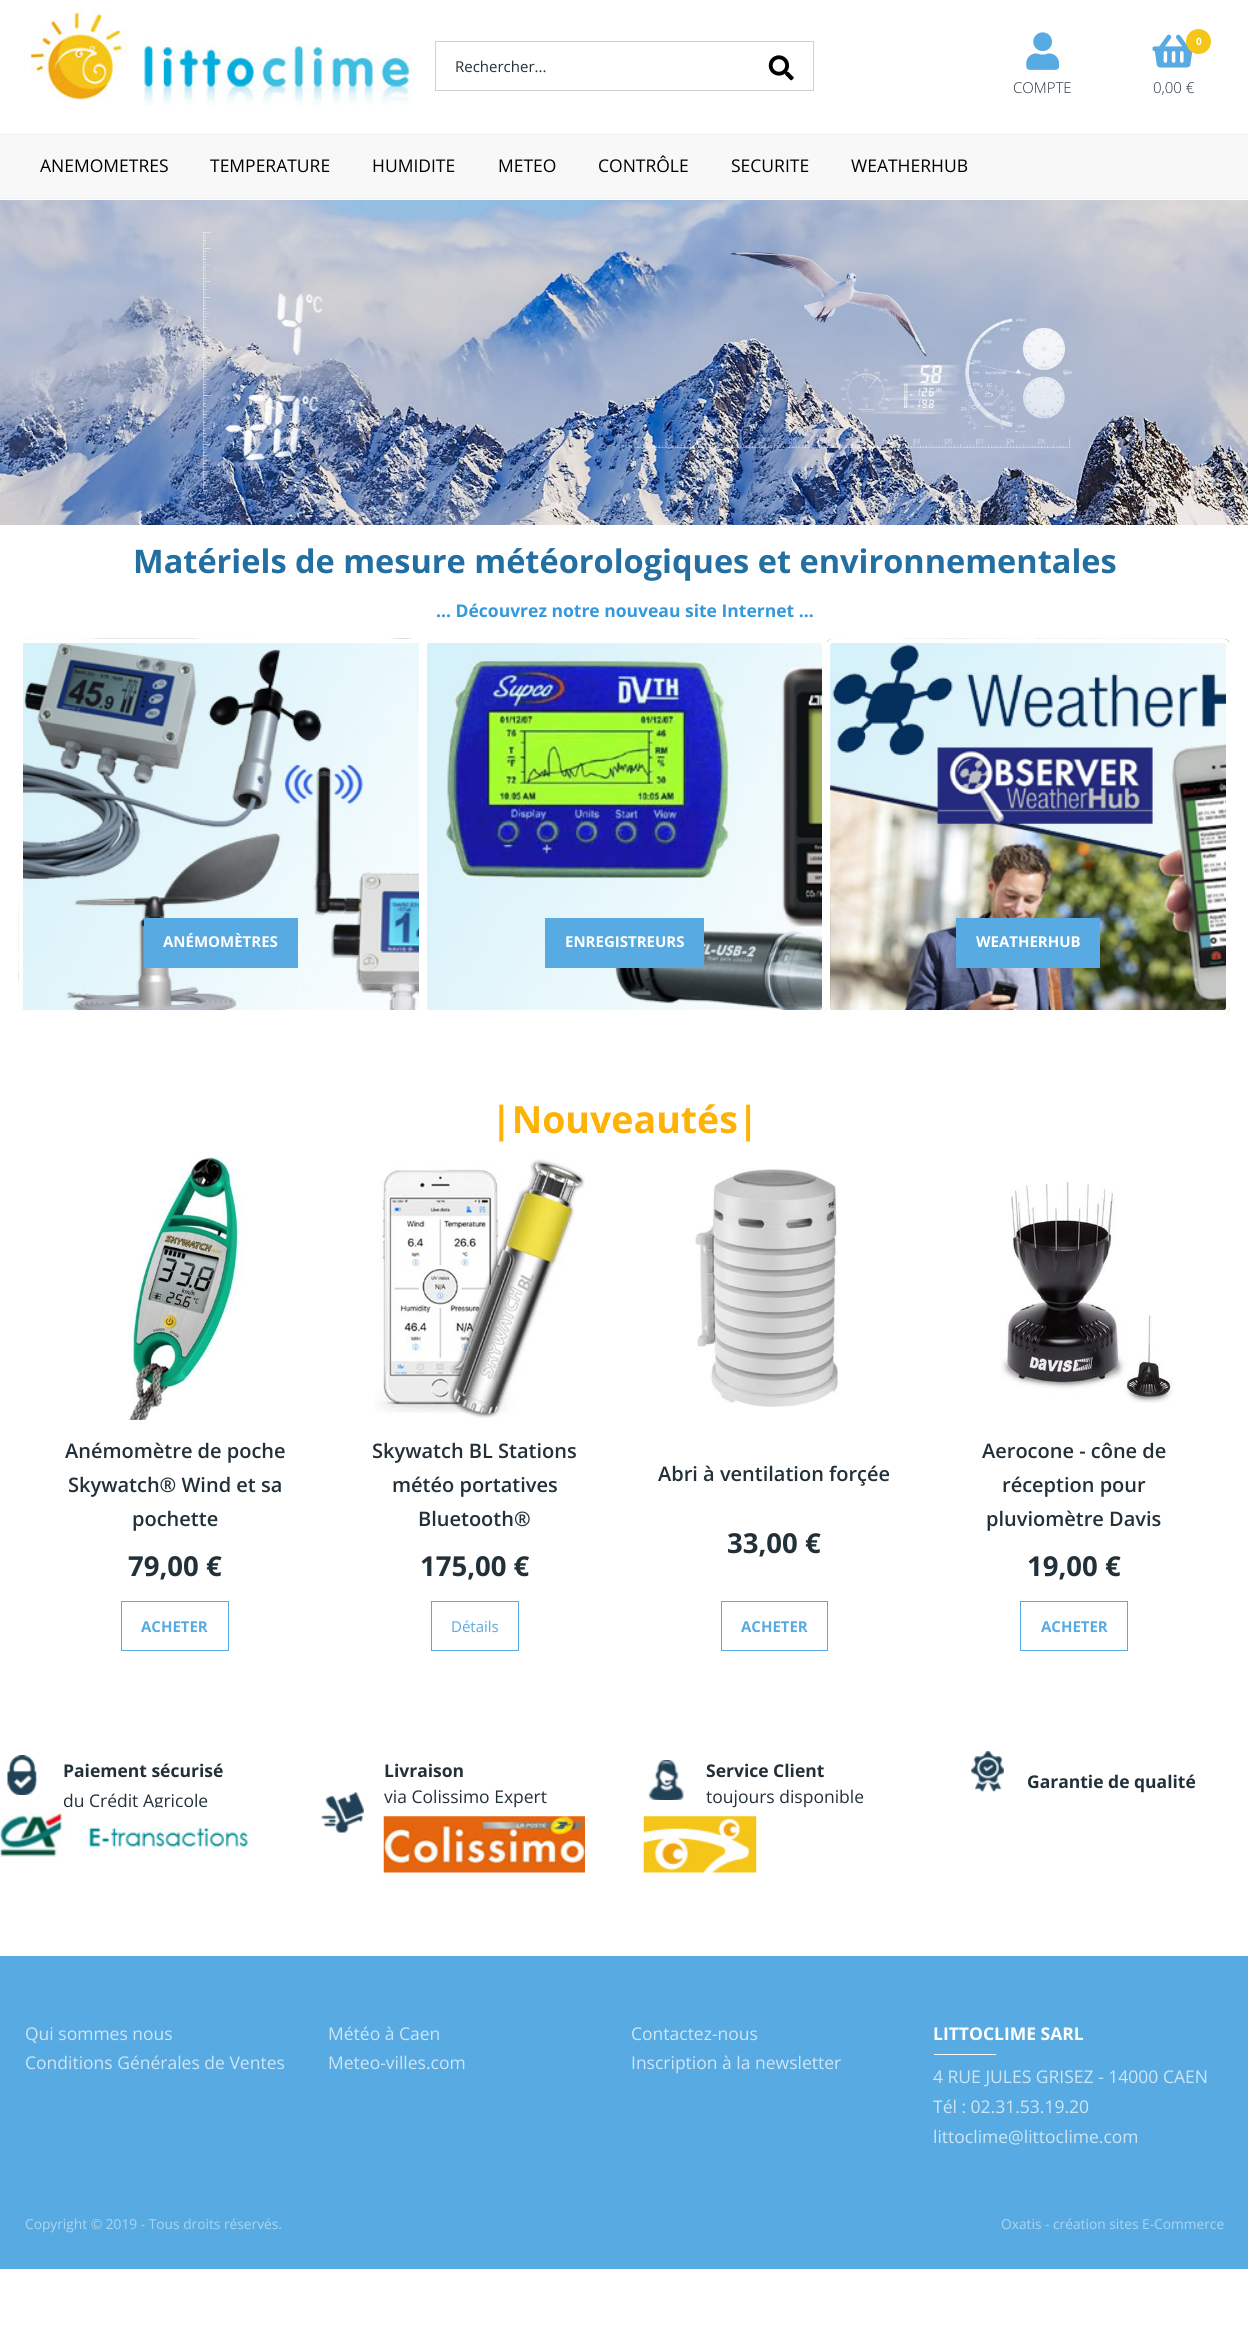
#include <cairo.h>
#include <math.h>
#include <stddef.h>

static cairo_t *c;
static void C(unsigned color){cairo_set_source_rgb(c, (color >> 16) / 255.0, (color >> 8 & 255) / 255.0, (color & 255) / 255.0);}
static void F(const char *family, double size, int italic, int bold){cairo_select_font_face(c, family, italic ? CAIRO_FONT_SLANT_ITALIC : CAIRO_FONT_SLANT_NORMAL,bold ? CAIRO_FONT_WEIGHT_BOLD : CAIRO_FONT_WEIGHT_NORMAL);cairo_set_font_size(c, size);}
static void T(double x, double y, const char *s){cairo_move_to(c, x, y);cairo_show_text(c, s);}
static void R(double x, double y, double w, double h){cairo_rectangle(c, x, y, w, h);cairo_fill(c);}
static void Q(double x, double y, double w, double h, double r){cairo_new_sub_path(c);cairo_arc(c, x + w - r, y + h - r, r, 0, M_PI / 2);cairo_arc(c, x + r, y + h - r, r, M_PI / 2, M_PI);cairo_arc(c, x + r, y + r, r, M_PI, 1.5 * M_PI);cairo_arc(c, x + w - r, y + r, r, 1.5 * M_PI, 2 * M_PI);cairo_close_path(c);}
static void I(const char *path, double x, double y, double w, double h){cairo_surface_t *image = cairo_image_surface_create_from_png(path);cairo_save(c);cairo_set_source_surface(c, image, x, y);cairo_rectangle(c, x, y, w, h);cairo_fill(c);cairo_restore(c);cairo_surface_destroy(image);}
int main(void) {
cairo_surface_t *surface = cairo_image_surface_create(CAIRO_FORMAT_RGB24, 1248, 2334);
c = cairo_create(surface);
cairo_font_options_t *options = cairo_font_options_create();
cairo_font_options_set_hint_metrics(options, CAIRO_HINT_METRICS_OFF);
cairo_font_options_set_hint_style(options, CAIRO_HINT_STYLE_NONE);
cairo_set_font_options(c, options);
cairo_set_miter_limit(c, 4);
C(0xffffff);
cairo_paint(c);
I("1.png",31,12,383,94);
C(0xd0d0d0);
R(435,41,379,1);
R(435,90,315,1);
R(435,41,1,50);
F("Open Sans",15,0,0);
C(0x223039);
T(455,72,"Rechercher...");
C(0xd0d0d0);
R(813,41,1,50);
R(750,90,64,1);
I("2.png",768,55,26,26);
I("3.png",1026,32,34,38);
F("Open Sans Light",15,0,0);
C(0x223039);
T(1013,93,"COMPTE");
I("4.png",1152,34,41,34);
C(0xf4c619);
cairo_arc(c,1198.5,41.5,12.5,0,2 * M_PI);
cairo_fill(c);
F("Open Sans",10,0,1);
C(0xffffff);
T(1196,45,"0");
F("Open Sans Light",15,0,0);
C(0x223039);
T(1153,93,"0,00 €");
C(0xf8f8f8);
R(0,135,1248,63);
C(0xf1f1f1);
R(0,134,1248,1);
R(0,198,1248,1);
F("Open Sans",17.5,0,0);
C(0x000000);
T(40,172,"ANEMOMETRES");
T(210,172,"TEMPERATURE");
T(372,172,"HUMIDITE");
T(498,172,"METEO");
T(598,172,"CONTRÔLE");
T(731,172,"SECURITE");
T(851,172,"WEATHERHUB");
I("5.png",0,200,1248,325);
F("Open Sans",32.5,0,1);
C(0x236fa1);
T(133,573,"Matériels de mesure météorologiques et environnementales");
F("Open Sans",17.5,0,1);
C(0x3598db);
T(436,617,"... Découvrez notre nouveau site Internet ...");
I("6.png",18,638,405,376);
cairo_rectangle(c,21,641,400,371);
C(0xffffff);
cairo_set_line_width(c,4);
cairo_stroke(c);
C(0x58aae2);
R(144,918,154,50);
F("Open Sans",15,0,1);
C(0xffffff);
T(163,947,"ANÉMOMÈTRES");
I("7.png",423,639,404,375);
Q(425,641,399,371,4);
cairo_stroke(c);
C(0x58aae2);
R(545,918,159,50);
C(0xffffff);
T(565,947,"ENREGISTREURS");
I("8.png",826,638,404,376);
Q(828,641,400,371,4);
cairo_stroke(c);
C(0x58aae2);
R(956,918,144,50);
C(0xffffff);
T(976,947,"WEATHERHUB");
F("Open Sans",37.5,0,1);
C(0xfeb208);
T(491,1133,"|Nouveautés|");
I("9.png",128,1157,115,263);
F("Open Sans SemiBold",20,0,0);
C(0x223039);
T(65,1458,"Anémomètre de poche");
T(68,1492,"Skywatch® Wind et sa");
T(132,1526,"pochette");
F("Open Sans",27.5,0,1);
T(128,1576,"79,00 €");
cairo_rectangle(c,121.5,1601.5,107,49);
C(0x58aae2);
cairo_set_line_width(c,1);
cairo_stroke(c);
F("Open Sans",15,0,1);
T(141,1632,"ACHETER");
I("10.png",375,1159,210,259);
F("Open Sans SemiBold",20,0,0);
C(0x223039);
T(372,1458,"Skywatch BL Stations");
T(392,1492,"météo portatives");
T(418,1526,"Bluetooth®");
F("Open Sans",27.5,0,1);
T(420,1576,"175,00 €");
cairo_rectangle(c,431.5,1601.5,87,49);
C(0x58aae2);
cairo_stroke(c);
F("Open Sans",15,0,0);
T(451,1632,"Détails");
I("11.png",695,1169,144,238);
F("Open Sans SemiBold",20,0,0);
C(0x223039);
T(658,1481,"Abri à ventilation forçée");
F("Open Sans",27.5,0,1);
T(727,1553,"33,00 €");
cairo_rectangle(c,721.5,1601.5,106,49);
C(0x58aae2);
cairo_stroke(c);
F("Open Sans",15,0,1);
T(741,1632,"ACHETER");
I("12.png",1001,1179,173,224);
F("Open Sans SemiBold",20,0,0);
C(0x223039);
T(982,1458,"Aerocone - cône de");
T(1002,1492,"réception pour");
T(986,1526,"pluviomètre Davis");
F("Open Sans",27.5,0,1);
T(1027,1576,"19,00 €");
cairo_rectangle(c,1020.5,1601.5,107,49);
C(0x58aae2);
cairo_stroke(c);
F("Open Sans",15,0,1);
T(1041,1632,"ACHETER");
I("13.png",7,1755,30,40);
F("Open Sans",17.5,0,1);
C(0x223039);
T(63,1777,"Paiement sécurisé");
F("Open Sans",17.5,0,0);
T(63,1807,"du Crédit Agricole");
I("14.png",0,1807,250,51);
F("Open Sans",17.5,0,1);
T(384,1777,"Livraison");
F("Open Sans",17.5,0,0);
T(384,1803,"via Colissimo Expert");
I("15.png",383,1816,202,57);
I("16.png",321,1792,43,41);
I("17.png",648,1760,36,40);
F("Open Sans",17.5,0,1);
T(706,1777,"Service Client");
F("Open Sans",17.5,0,0);
T(706,1803,"toujours disponible");
I("18.png",643,1816,114,57);
I("19.png",971,1751,33,41);
F("Open Sans",17.5,0,1);
T(1027,1788,"Garantie de qualité");
C(0x58aae2);
R(0,1956,1248,313);
F("Open Sans",17.5,0,0);
C(0xcde6f6);
T(25,2040,"Qui sommes nous");
T(25,2069,"Conditions Générales de Ventes");
T(328,2040,"Météo à Caen");
T(328,2069,"Meteo-villes.com");
T(631,2040,"Contactez-nous");
T(631,2069,"Inscription à la newsletter");
F("Open Sans",17.5,0,1);
C(0xffffff);
T(933,2040,"LITTOCLIME SARL");
R(934,2054,62,1);
F("Open Sans",17.5,0,0);
C(0xcde6f6);
T(933,2083,"4 RUE JULES GRISEZ - 14000 CAEN");
T(933,2113,"Tél : 02.31.53.19.20");
T(933,2143,"littoclime@littoclime.com");
F("Open Sans",13.75,0,0);
C(0xacd5f1);
T(25,2229,"Copyright © 2019 - Tous droits réservés.");
T(1001,2229,"Oxatis - création sites E-Commerce");
cairo_surface_write_to_png(surface, "o.png");
cairo_font_options_destroy(options);
cairo_destroy(c);
cairo_surface_destroy(surface);
return 0;
}
